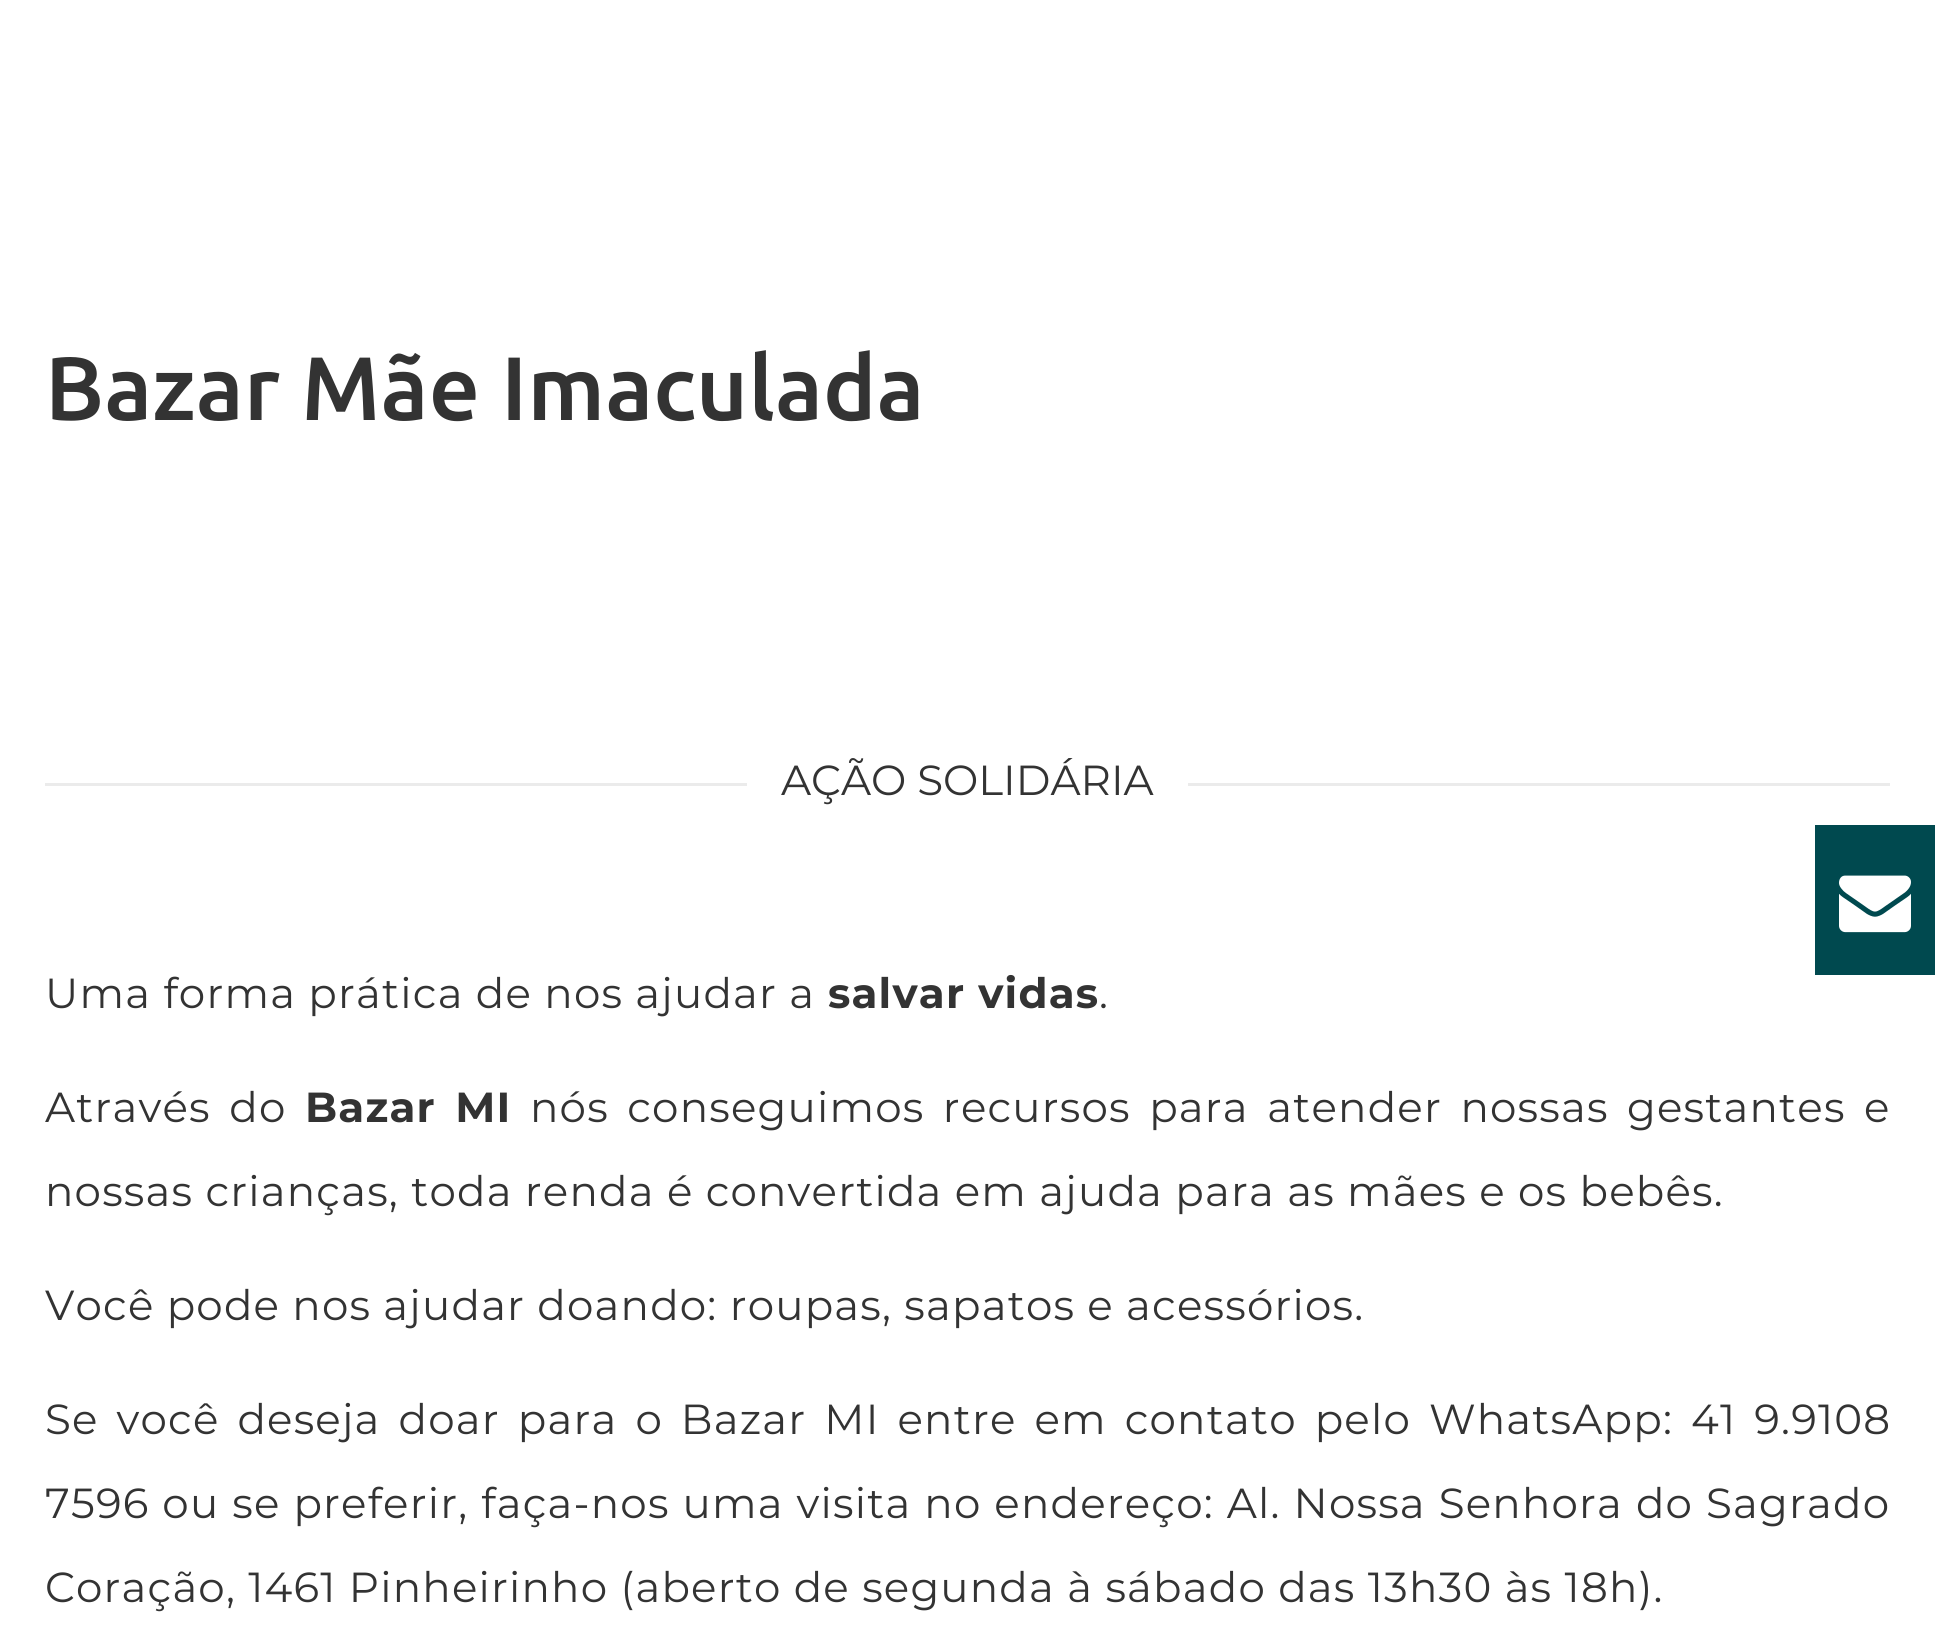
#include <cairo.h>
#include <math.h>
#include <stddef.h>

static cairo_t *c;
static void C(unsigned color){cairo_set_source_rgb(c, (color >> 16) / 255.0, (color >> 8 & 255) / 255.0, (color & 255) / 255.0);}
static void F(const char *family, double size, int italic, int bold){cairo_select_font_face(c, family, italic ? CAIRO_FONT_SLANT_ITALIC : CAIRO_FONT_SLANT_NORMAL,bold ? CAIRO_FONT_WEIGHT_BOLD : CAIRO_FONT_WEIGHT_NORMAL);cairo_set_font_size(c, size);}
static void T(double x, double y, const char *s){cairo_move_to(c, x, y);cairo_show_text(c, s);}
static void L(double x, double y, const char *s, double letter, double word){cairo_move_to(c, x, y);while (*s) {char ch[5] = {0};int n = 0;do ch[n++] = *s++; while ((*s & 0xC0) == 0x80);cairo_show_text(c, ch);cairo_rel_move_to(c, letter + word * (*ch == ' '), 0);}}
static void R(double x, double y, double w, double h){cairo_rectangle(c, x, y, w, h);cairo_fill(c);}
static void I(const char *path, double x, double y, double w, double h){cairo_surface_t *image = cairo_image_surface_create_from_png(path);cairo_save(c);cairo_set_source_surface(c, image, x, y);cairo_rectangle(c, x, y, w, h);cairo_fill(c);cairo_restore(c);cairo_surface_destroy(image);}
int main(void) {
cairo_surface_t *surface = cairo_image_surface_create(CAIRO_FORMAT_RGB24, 1935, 1642);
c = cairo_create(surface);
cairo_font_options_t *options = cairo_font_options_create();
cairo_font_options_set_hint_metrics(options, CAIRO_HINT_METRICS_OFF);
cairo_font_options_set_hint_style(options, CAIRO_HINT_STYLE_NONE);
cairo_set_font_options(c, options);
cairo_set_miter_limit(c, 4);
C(0xffffff);
cairo_paint(c);
F("Ubuntu Medium",90,0,0);
C(0x333333);
T(45,420,"Bazar Mãe Imaculada");
C(0xebebeb);
R(45,783,702,3);
F("Montserrat",42,0,0);
C(0x333333);
T(781,795,"AÇÃO SOLIDÁRIA");
C(0xebebeb);
R(1188,783,702,3);
C(0x333333);
L(45,1008,"Uma forma prática de nos ajudar a",1.2,0);
F("Montserrat",42,0,1);
L(828,1008,"salvar vidas",1.2,0);
F("Montserrat",42,0,0);
L(1099,1008,".",1.2,0);
L(45,1122,"Através do",1.2,6.25);
F("Montserrat",42,0,1);
L(305,1122,"Bazar MI",1.2,6.25);
F("Montserrat",42,0,0);
L(530,1122,"nós conseguimos recursos para atender nossas gestantes e",1.2,6.25);
L(45,1206,"nossas crianças, toda renda é convertida em ajuda para as mães e os bebês.",1.2,0);
L(45,1320,"Você pode nos ajudar doando: roupas, sapatos e acessórios.",1.2,0);
L(45,1434,"Se você deseja doar para o Bazar MI entre em contato pelo WhatsApp: 41 9.9108",1.2,5.75);
L(45,1518,"7596 ou se preferir, faça-nos uma visita no endereço: Al. Nossa Senhora do Sagrado",1.2,.7);
L(45,1602,"Coração, 1461 Pinheirinho (aberto de segunda à sábado das 13h30 às 18h).",1.2,0);
C(0x00494f);
R(1815,825,120,150);
I("1.png",1839,875,72,58);
cairo_surface_write_to_png(surface, "o.png");
cairo_font_options_destroy(options);
cairo_destroy(c);
cairo_surface_destroy(surface);
return 0;
}
